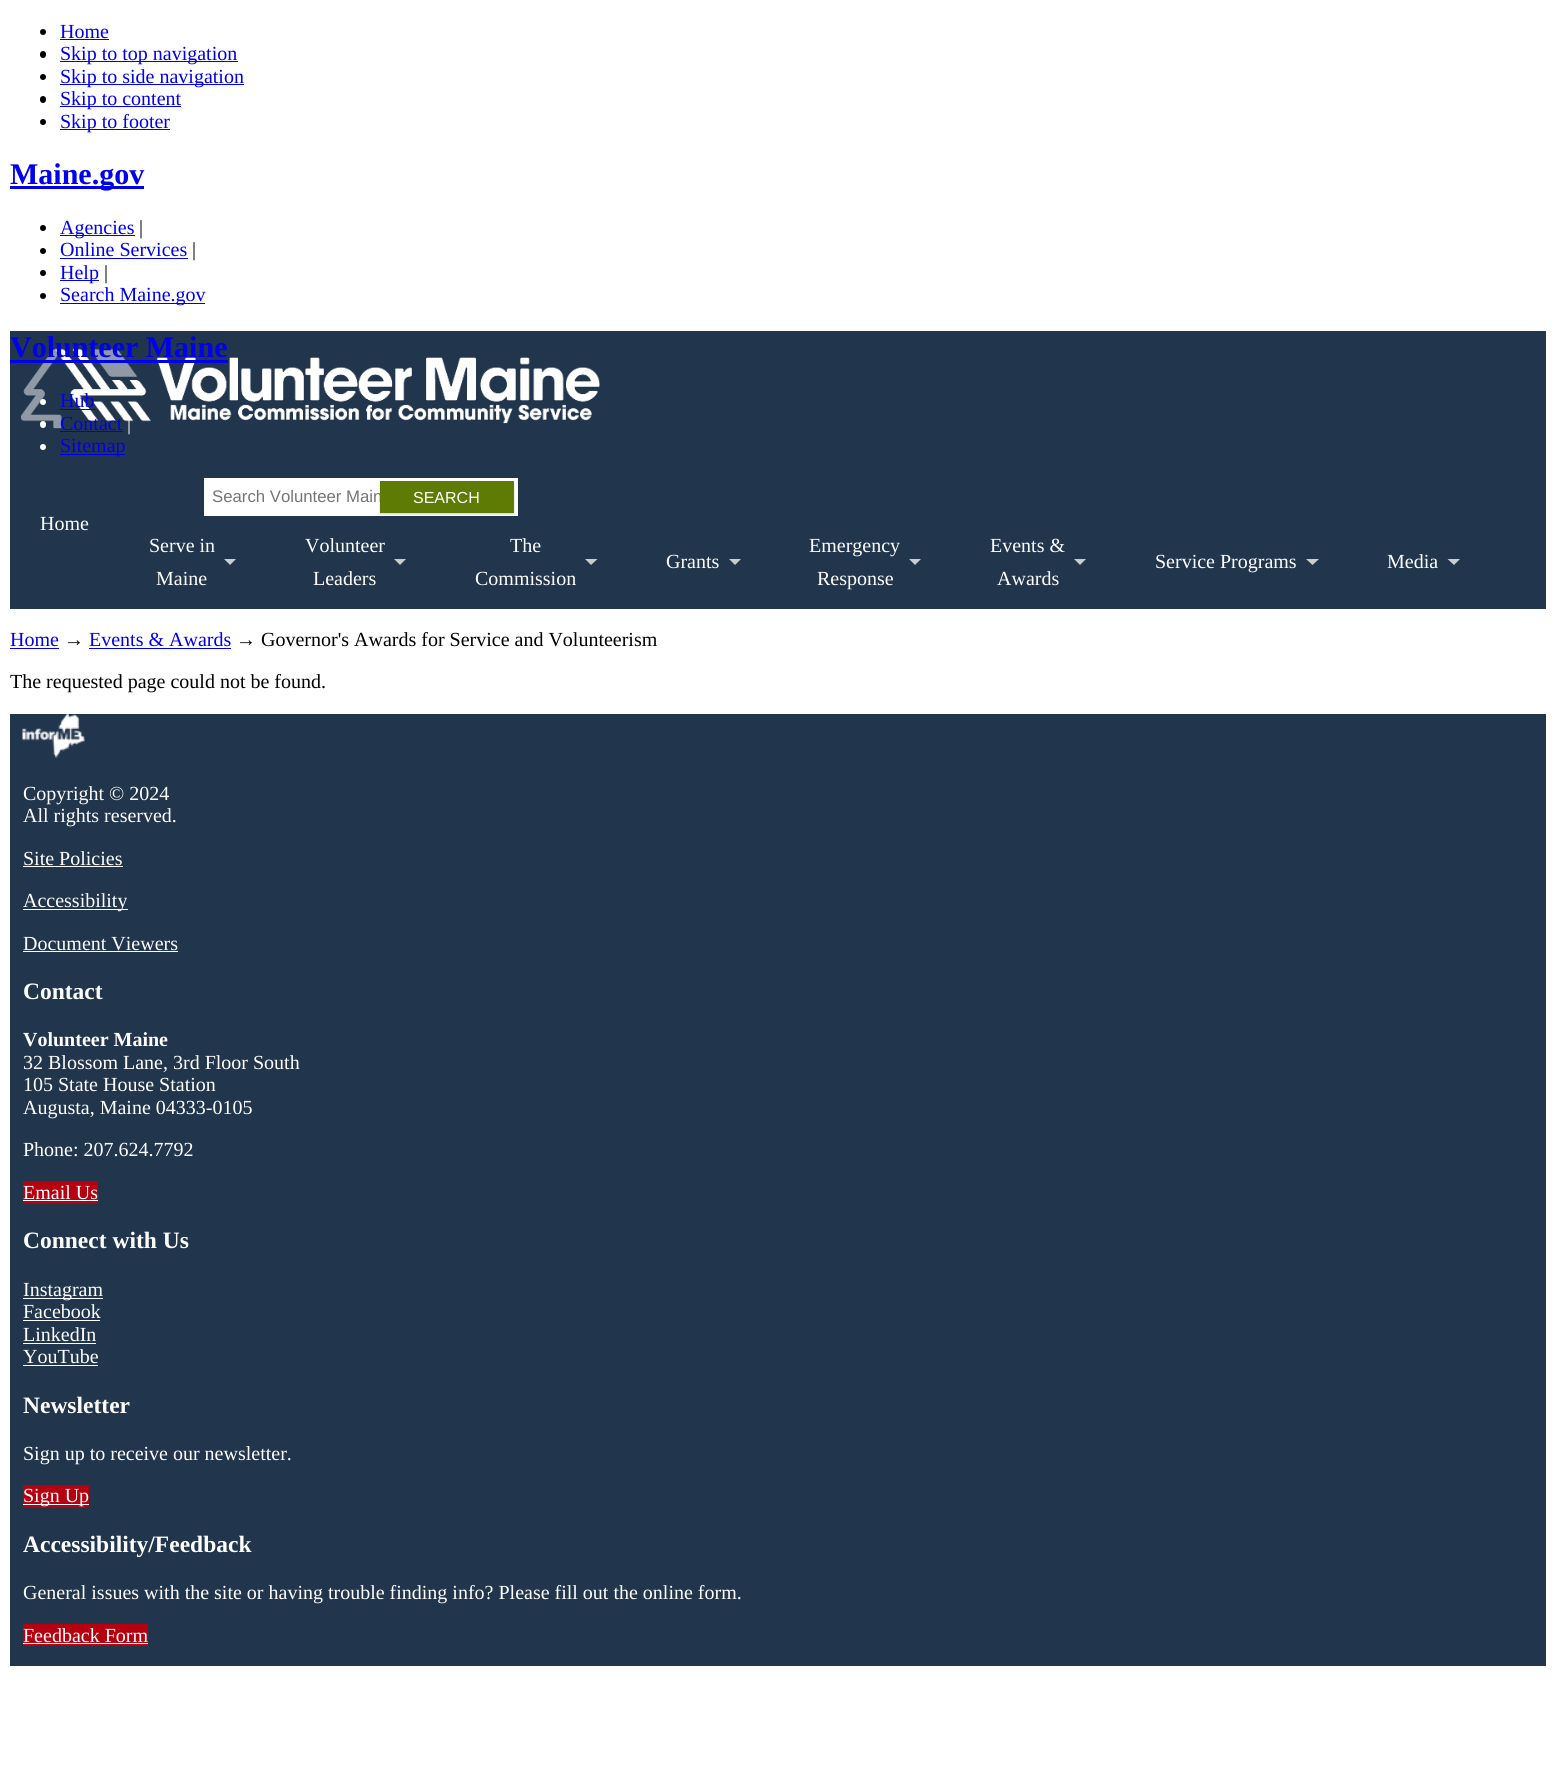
#include <cairo.h>
#include <math.h>
#include <stddef.h>

static cairo_t *c;
static void C(unsigned color){cairo_set_source_rgb(c, (color >> 16) / 255.0, (color >> 8 & 255) / 255.0, (color & 255) / 255.0);}
static void F(const char *family, double size, int italic, int bold){cairo_select_font_face(c, family, italic ? CAIRO_FONT_SLANT_ITALIC : CAIRO_FONT_SLANT_NORMAL,bold ? CAIRO_FONT_WEIGHT_BOLD : CAIRO_FONT_WEIGHT_NORMAL);cairo_set_font_size(c, size);}
static void T(double x, double y, const char *s){cairo_move_to(c, x, y);cairo_show_text(c, s);}
static void R(double x, double y, double w, double h){cairo_rectangle(c, x, y, w, h);cairo_fill(c);}
static void Q(double x, double y, double w, double h, double r){cairo_new_sub_path(c);cairo_arc(c, x + w - r, y + h - r, r, 0, M_PI / 2);cairo_arc(c, x + r, y + h - r, r, M_PI / 2, M_PI);cairo_arc(c, x + r, y + r, r, M_PI, 1.5 * M_PI);cairo_arc(c, x + w - r, y + r, r, 1.5 * M_PI, 2 * M_PI);cairo_close_path(c);}
static void S(double x, double y, double w, double h, double r, double blur, double alpha){cairo_push_group_with_content(c, CAIRO_CONTENT_ALPHA);cairo_set_operator(c, CAIRO_OPERATOR_SOURCE);for (int i = 15; i >= -15 && fmin(w, h) + blur * i / 3 > 0; i -= 2) {double e = blur * i / 6;cairo_set_source_rgba(c, 0, 0, 0, alpha * erfc((i - 1) / 8.5) / 2);Q(x - e, y - e, w + 2 * e, h + 2 * e, fmax(0, fmin(r + e + blur * .6, fmin(w, h) / 2 + e)));cairo_fill(c);}cairo_pattern_t *soft = cairo_pop_group(c);cairo_mask(c, soft);cairo_pattern_destroy(soft);}
static void I(const char *path, double x, double y, double w, double h){cairo_surface_t *image = cairo_image_surface_create_from_png(path);cairo_save(c);cairo_set_source_surface(c, image, x, y);cairo_rectangle(c, x, y, w, h);cairo_fill(c);cairo_restore(c);cairo_surface_destroy(image);}
int main(void) {
cairo_surface_t *surface = cairo_image_surface_create(CAIRO_FORMAT_RGB24, 1556, 1789);
c = cairo_create(surface);
cairo_font_options_t *options = cairo_font_options_create();
cairo_font_options_set_hint_metrics(options, CAIRO_HINT_METRICS_OFF);
cairo_font_options_set_hint_style(options, CAIRO_HINT_STYLE_NONE);
cairo_set_font_options(c, options);
cairo_set_miter_limit(c, 4);
C(0xffffff);
cairo_paint(c);
C(0x000000);
cairo_arc(c,43,32,3,0,2 * M_PI);
cairo_fill(c);
F("Liberation Serif",20,0,0);
C(0x0000ee);
T(60,38,"Home");
R(60,39,49,1);
C(0x000000);
Q(40,51,6,7,3);
cairo_fill(c);
C(0x0000ee);
R(60,61,178,1);
T(60,60,"Skip to top navigation");
C(0x000000);
cairo_new_path(c);
cairo_arc(c,43,77,3,0,2 * M_PI);
cairo_fill(c);
C(0x0000ee);
R(60,84,184,1);
T(60,83,"Skip to side navigation");
C(0x000000);
Q(40,96,6,7,3);
cairo_fill(c);
C(0x0000ee);
R(60,106,121,1);
T(60,105,"Skip to content");
C(0x000000);
cairo_new_path(c);
cairo_arc(c,43,122,3,0,2 * M_PI);
cairo_fill(c);
C(0x0000ee);
R(60,129,110,1);
T(60,128,"Skip to footer");
R(10,186,134,3);
F("Liberation Serif",30,0,1);
T(10,184,"Maine.gov");
C(0x000000);
cairo_new_path(c);
cairo_arc(c,43,228,3,0,2 * M_PI);
cairo_fill(c);
C(0x0000ee);
R(60,235,75,1);
F("Liberation Serif",20,0,0);
T(60,234,"Agencies");
C(0x000000);
T(139,234,"|");
cairo_new_path(c);
cairo_arc(c,43,251,3,0,2 * M_PI);
cairo_fill(c);
C(0x0000ee);
T(60,256,"Online Services");
R(60,258,128,1);
C(0x000000);
T(192,256,"|");
cairo_new_path(c);
cairo_arc(c,43,273,3,0,2 * M_PI);
cairo_fill(c);
C(0x0000ee);
R(60,280,39,1);
T(60,279,"Help");
C(0x000000);
T(104,279,"|");
cairo_new_path(c);
cairo_arc(c,43,296,3,0,2 * M_PI);
cairo_fill(c);
C(0x0000ee);
R(60,303,145,1);
T(60,301,"Search Maine.gov");
C(0x21354c);
R(10,331,1536,278);
I("1.png",20,348,580,81);
F("Liberation Serif",30,0,1);
C(0x0000ee);
T(10,357,"Volunteer Maine");
R(10,360,218,3);
C(0xffffff);
cairo_new_path(c);
cairo_arc(c,43,402,3,0,2 * M_PI);
cairo_fill(c);
F("Liberation Serif",20,0,0);
C(0x0000ee);
T(60,407,"Hub");
R(60,409,35,1);
C(0xffffff);
Q(40,421,6,7,3);
cairo_fill(c);
C(0x0000ee);
T(60,430,"Contact");
R(60,431,63,1);
C(0xffffff);
T(127,430,"|");
cairo_new_path(c);
cairo_arc(c,43,447,3,0,2 * M_PI);
cairo_fill(c);
C(0x0000ee);
R(60,454,65,1);
T(60,452,"Sitemap");
C(0xffffff);
R(204,478,314,38);
F("Liberation Sans",16.75,0,0);
C(0x757575);
T(212,502,"Search Volunteer Main");
C(0x000000);
S(380,483,134,31,0,1,.2);
C(0x5e7b04);
R(380,481,134,32);
F("Liberation Sans",16,0,0);
C(0xffffff);
T(413,503,"SEARCH");
F("Liberation Serif",20,0,0);
T(40,530,"Home");
T(149,552,"Serve in");
C(0xc8cdd2);
cairo_new_path(c);
cairo_move_to(c,224,559);
cairo_line_to(c,236,559);
cairo_line_to(c,230,565);
cairo_close_path(c);
cairo_fill(c);
C(0xffffff);
T(156,585,"Maine");
T(305,552,"Volunteer");
C(0xc8cdd2);
cairo_new_path(c);
cairo_move_to(c,394,559);
cairo_line_to(c,406,559);
cairo_line_to(c,400,565);
cairo_close_path(c);
cairo_fill(c);
C(0xffffff);
T(313,585,"Leaders");
T(510,552,"The");
C(0xc8cdd2);
cairo_new_path(c);
cairo_move_to(c,585,559);
cairo_line_to(c,597.5,559);
cairo_line_to(c,591,565);
cairo_close_path(c);
cairo_fill(c);
C(0xffffff);
T(475,585,"Commission");
T(666,568,"Grants");
C(0xc8cdd2);
cairo_new_path(c);
cairo_move_to(c,729,559);
cairo_line_to(c,741,559);
cairo_line_to(c,735,565);
cairo_close_path(c);
cairo_fill(c);
C(0xffffff);
T(809,552,"Emergency");
C(0xc8cdd2);
cairo_new_path(c);
cairo_move_to(c,909,559);
cairo_line_to(c,921,559);
cairo_line_to(c,915,565);
cairo_close_path(c);
cairo_fill(c);
C(0xffffff);
T(817,585,"Response");
T(990,552,"Events &");
C(0xc8cdd2);
cairo_new_path(c);
cairo_move_to(c,1074,559);
cairo_line_to(c,1086,559);
cairo_line_to(c,1080,565);
cairo_close_path(c);
cairo_fill(c);
C(0xffffff);
T(997,585,"Awards");
T(1155,568,"Service Programs");
C(0xc8cdd2);
cairo_new_path(c);
cairo_move_to(c,1306,559);
cairo_line_to(c,1319,559);
cairo_line_to(c,1312.5,565);
cairo_close_path(c);
cairo_fill(c);
C(0xffffff);
T(1387,568,"Media");
C(0xc8cdd2);
cairo_new_path(c);
cairo_move_to(c,1447.5,559);
cairo_line_to(c,1460,559);
cairo_line_to(c,1454,565);
cairo_close_path(c);
cairo_fill(c);
C(0x0000ee);
T(10,646,"Home");
R(10,648,49,1);
C(0x000000);
T(64,646,"→");
C(0x0000ee);
T(89,646,"Events & Awards");
R(89,648,142,1);
C(0x000000);
T(236,646,"→ Governor's Awards for Service and Volunteerism");
T(10,688,"The requested page could not be found.");
C(0x21354c);
R(10,714,1536,952);
I("2.png",22,714,63,44);
C(0xffffff);
T(23,800,"Copyright © 2024");
T(23,822,"All rights reserved.");
T(23,865,"Site Policies");
R(23,866,100,1);
R(23,909,105,1);
T(23,907,"Accessibility");
T(23,950,"Document Viewers");
R(23,951,155,1);
F("Liberation Serif",23.5,0,1);
T(23,999,"Contact");
F("Liberation Serif",20,0,1);
T(23,1046,"Volunteer Maine");
F("Liberation Serif",20,0,0);
T(23,1069,"32 Blossom Lane, 3rd Floor South");
T(23,1091,"105 State House Station");
T(23,1114,"Augusta, Maine 04333-0105");
T(23,1156,"Phone: 207.624.7792");
C(0xb4000f);
R(23,1181,75,23);
C(0xffffff);
T(23,1199,"Email Us");
R(23,1200,75,1);
F("Liberation Serif",23.5,0,1);
T(23,1248,"Connect with Us");
R(23,1298,80,1);
F("Liberation Serif",20,0,0);
T(23,1296,"Instagram");
T(23,1318,"Facebook");
R(23,1320,77,1);
T(23,1341,"LinkedIn");
R(23,1343,73,1);
T(23,1363,"YouTube");
R(23,1365,75,1);
F("Liberation Serif",23.5,0,1);
T(23,1413,"Newsletter");
F("Liberation Serif",20,0,0);
T(23,1460,"Sign up to receive our newsletter.");
C(0xb4000f);
R(23,1485,66,23);
C(0xffffff);
R(23,1504,66,1);
T(23,1502,"Sign Up");
F("Liberation Serif",23.5,0,1);
T(23,1552,"Accessibility/Feedback");
F("Liberation Serif",20,0,0);
T(23,1599,"General issues with the site or having trouble finding info? Please fill out the online form.");
C(0xb4000f);
R(23,1624,125,22);
C(0xffffff);
T(23,1642,"Feedback Form");
R(23,1643,125,1);
cairo_surface_write_to_png(surface, "o.png");
cairo_font_options_destroy(options);
cairo_destroy(c);
cairo_surface_destroy(surface);
return 0;
}
